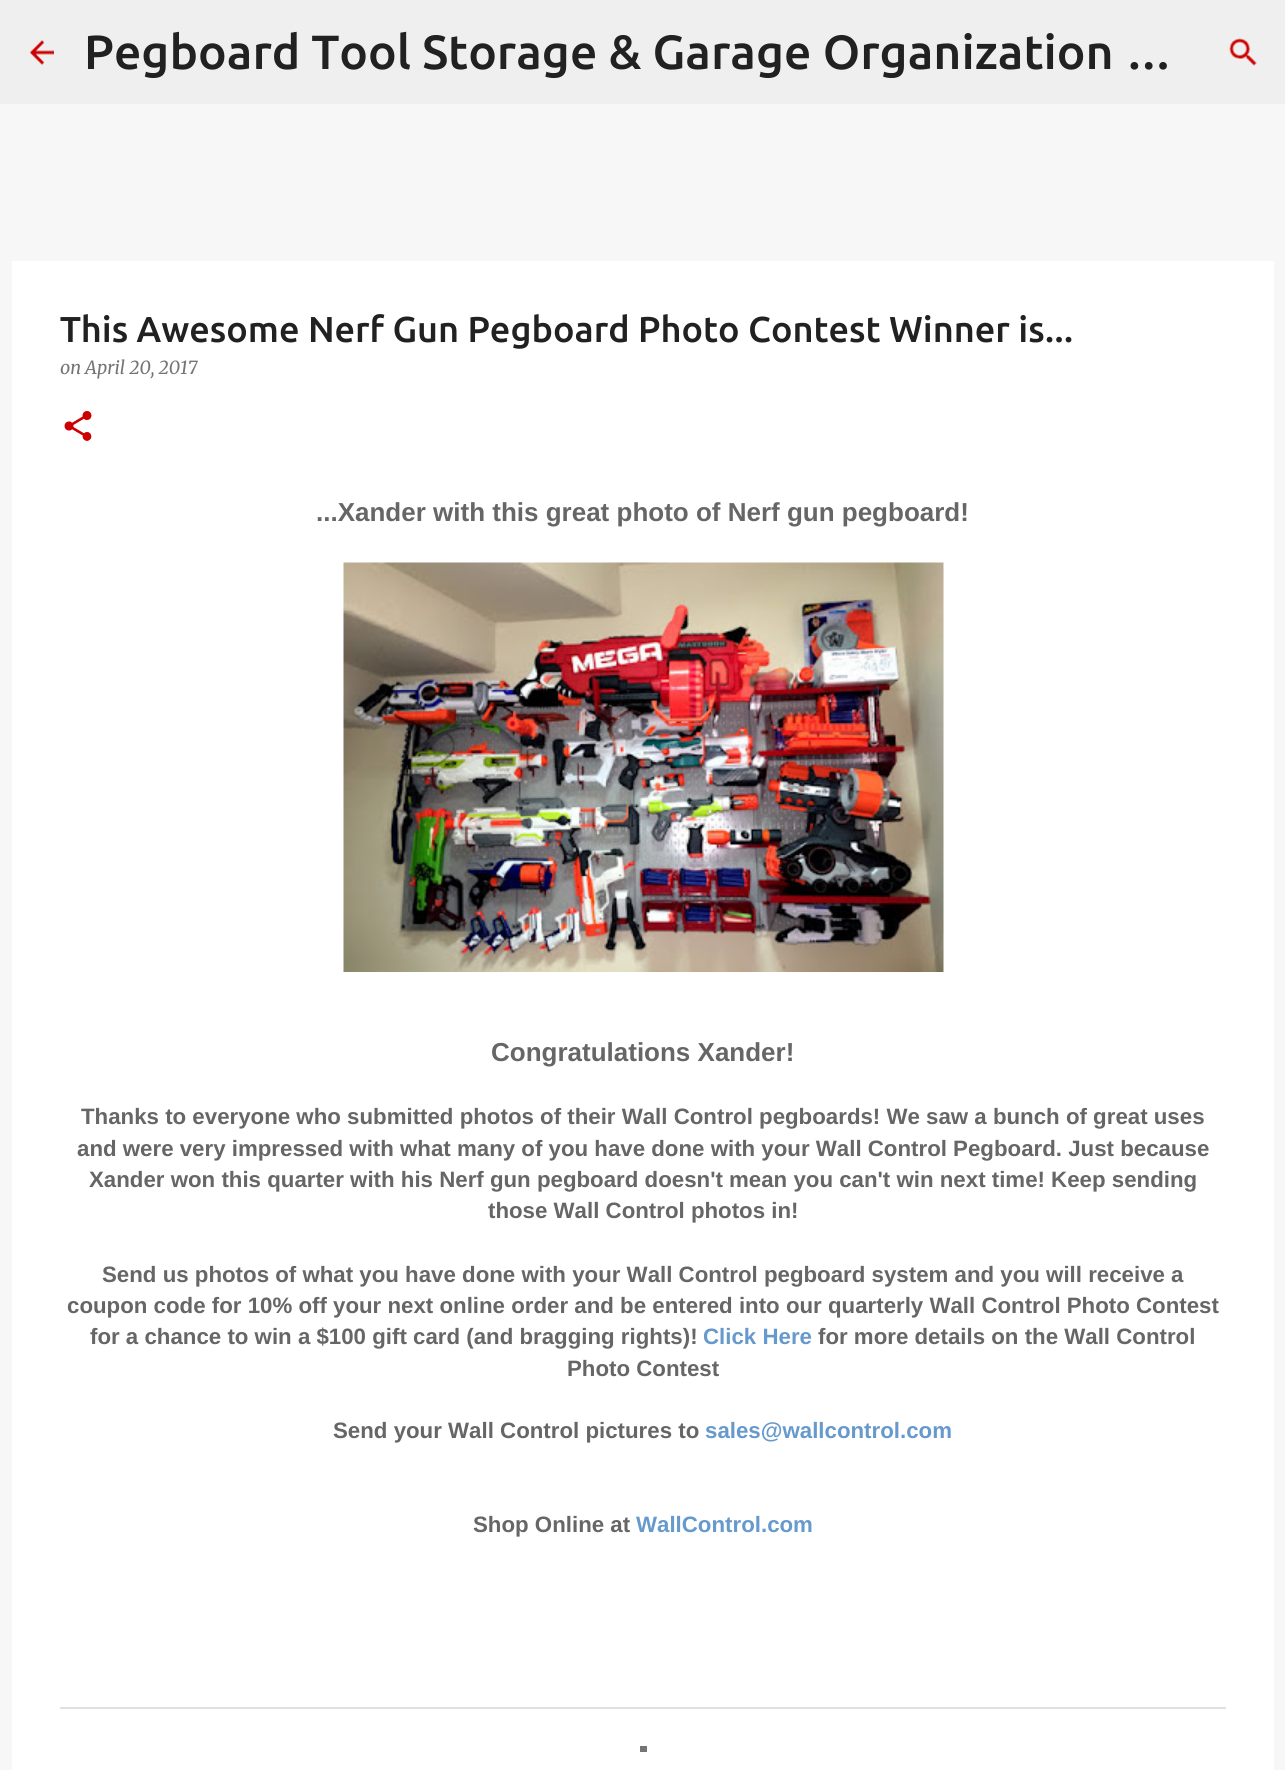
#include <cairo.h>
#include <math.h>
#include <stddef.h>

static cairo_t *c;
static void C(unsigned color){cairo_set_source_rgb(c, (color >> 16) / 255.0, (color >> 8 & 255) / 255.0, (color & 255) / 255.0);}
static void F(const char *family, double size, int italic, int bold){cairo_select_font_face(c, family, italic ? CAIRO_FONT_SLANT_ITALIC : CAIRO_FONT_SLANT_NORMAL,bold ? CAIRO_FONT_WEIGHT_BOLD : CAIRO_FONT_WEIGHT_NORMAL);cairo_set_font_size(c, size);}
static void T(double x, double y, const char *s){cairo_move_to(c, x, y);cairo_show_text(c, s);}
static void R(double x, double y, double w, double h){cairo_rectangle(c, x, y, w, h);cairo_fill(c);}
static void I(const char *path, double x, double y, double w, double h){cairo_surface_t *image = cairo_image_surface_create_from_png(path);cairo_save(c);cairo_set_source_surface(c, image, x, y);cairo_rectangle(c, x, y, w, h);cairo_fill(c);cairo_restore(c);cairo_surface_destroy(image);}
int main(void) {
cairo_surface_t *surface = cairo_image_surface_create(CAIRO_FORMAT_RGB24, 1285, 1770);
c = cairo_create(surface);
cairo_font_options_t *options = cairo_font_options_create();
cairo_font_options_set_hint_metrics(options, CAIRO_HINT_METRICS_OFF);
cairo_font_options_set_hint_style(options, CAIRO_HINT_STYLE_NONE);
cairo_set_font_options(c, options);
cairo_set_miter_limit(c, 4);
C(0xf7f7f7);
cairo_paint(c);
C(0xefefef);
R(0,0,1285,104);
I("1.png",30,40,24,25);
F("Ubuntu Medium",48,0,0);
C(0x212121);
T(84,69,"Pegboard Tool Storage & Garage Organization …");
I("2.png",1229,38,28,28);
C(0xffffff);
R(12,261,1262,1509);
C(0xe0e0e0);
R(60,1707,1166,2);
F("Ubuntu Medium",36,0,0);
C(0x212121);
T(60,342,"This Awesome Nerf Gun Pegboard Photo Contest Winner is...");
F("Merriweather",18,1,0);
C(0x757575);
T(60,374,"on April 20, 2017");
I("3.png",64,411,28,30);
F("Liberation Sans",26,0,1);
C(0x666666);
T(316,521,"...Xander with this great photo of Nerf gun pegboard!");
I("4.png",343,562,601,410);
T(491,1061,"Congratulations Xander!");
F("Liberation Sans",22.27,0,1);
T(81,1124,"Thanks to everyone who submitted photos of their Wall Control pegboards! We saw a bunch of great uses");
T(77,1156,"and were very impressed with what many of you have done with your Wall Control Pegboard. Just because");
T(89,1187,"Xander won this quarter with his Nerf gun pegboard doesn't mean you can't win next time! Keep sending");
T(488,1218,"those Wall Control photos in!");
T(102,1282,"Send us photos of what you have done with your Wall Control pegboard system and you will receive a");
T(67,1313,"coupon code for 10% off your next online order and be entered into our quarterly Wall Control Photo Contest");
T(90,1344,"for a chance to win a $100 gift card (and bragging rights)!");
C(0x6699cc);
T(703,1344,"Click Here");
C(0x666666);
T(818,1344,"for more details on the Wall Control");
T(567,1376,"Photo Contest");
T(333,1438,"Send your Wall Control pictures to");
C(0x6699cc);
T(705,1438,"sales@wallcontrol.com");
C(0x666666);
T(473,1532,"Shop Online at");
C(0x6699cc);
T(636,1532,"WallControl.com");
C(0x757575);
R(640,1746,7,6);
cairo_surface_write_to_png(surface, "o.png");
cairo_font_options_destroy(options);
cairo_destroy(c);
cairo_surface_destroy(surface);
return 0;
}
